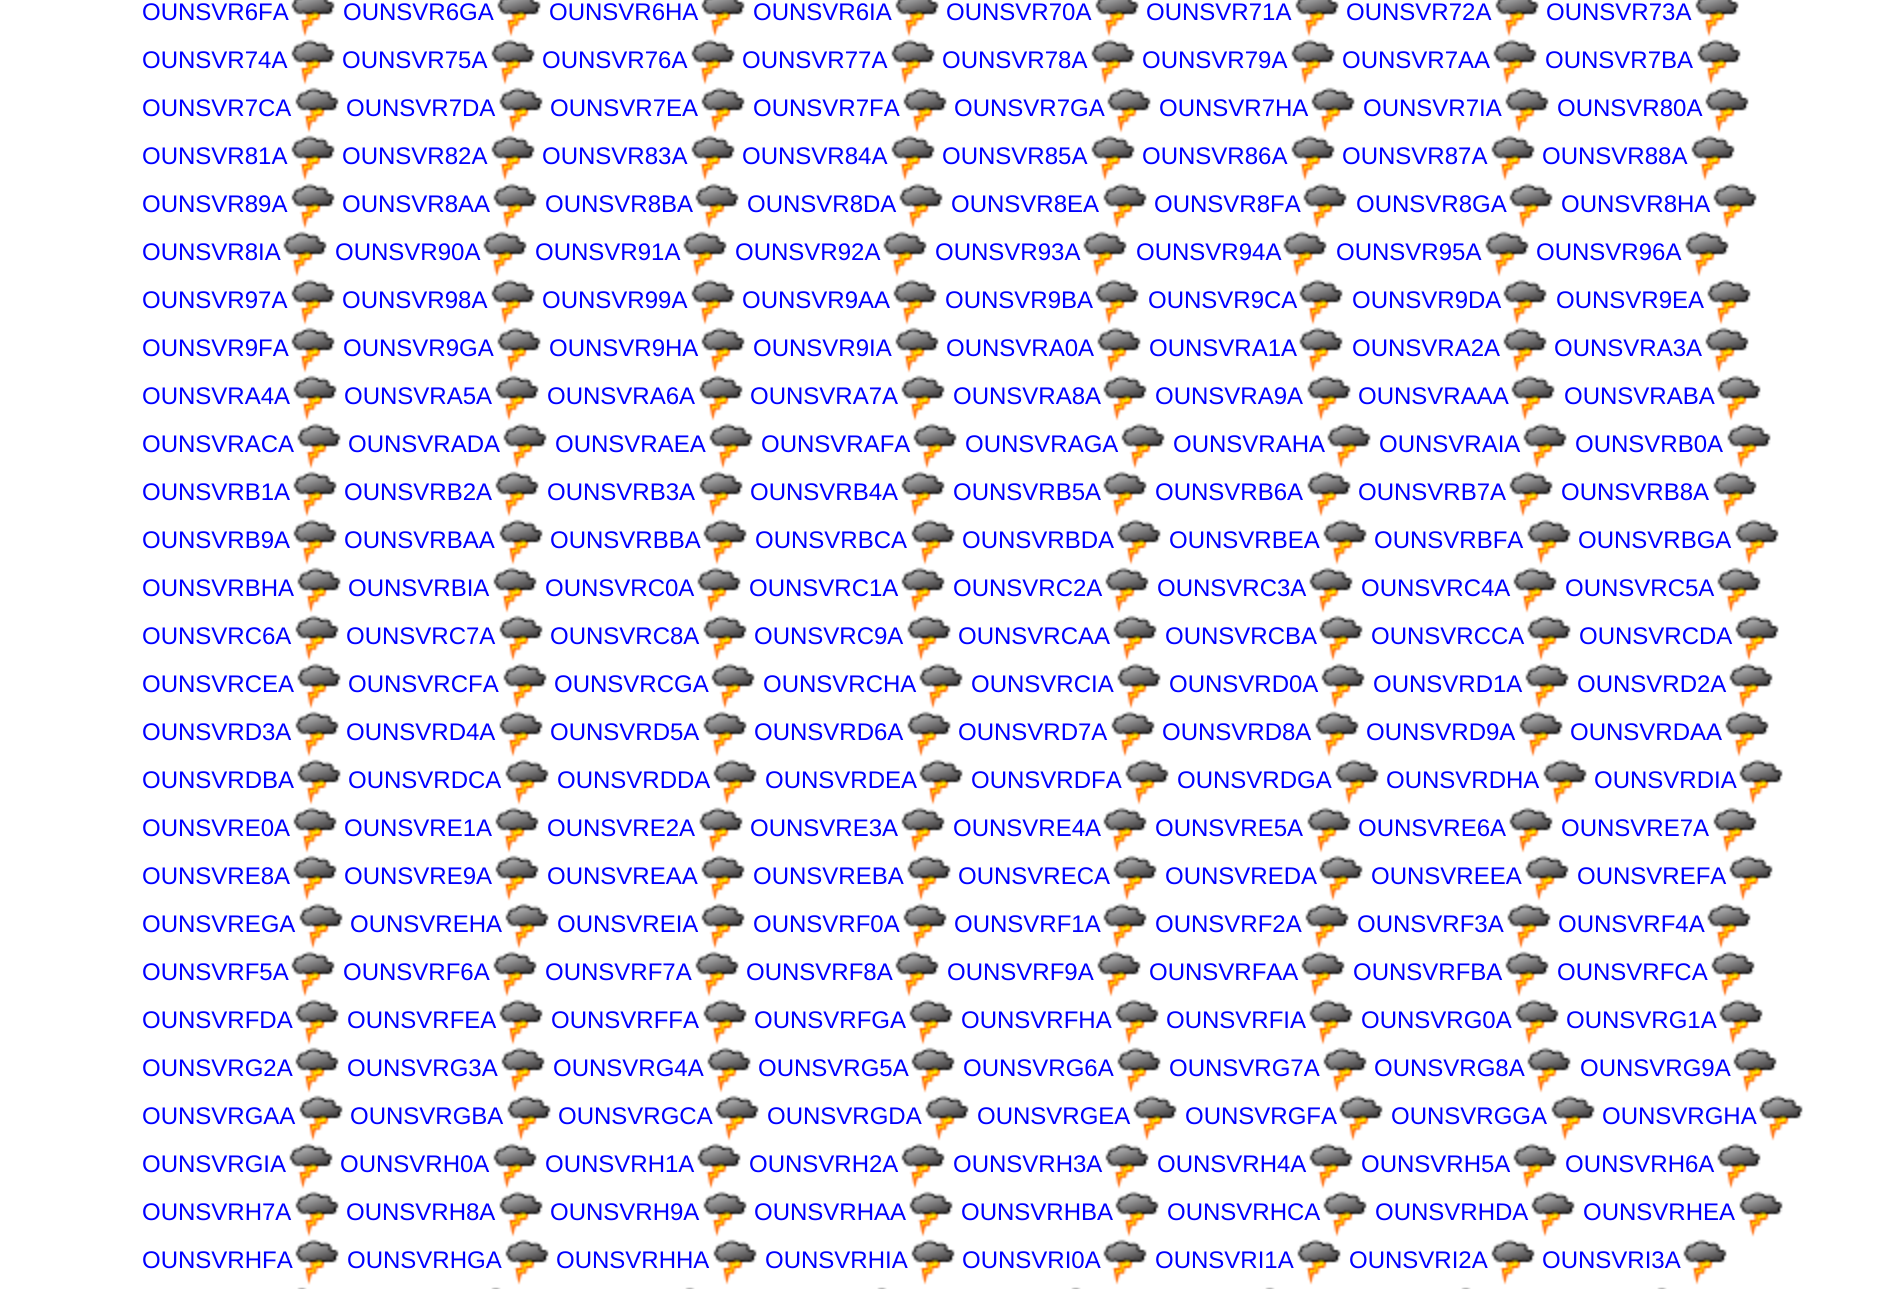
#include <cairo.h>
#include <math.h>
#include <stddef.h>

static cairo_t *c;
static void C(unsigned color){cairo_set_source_rgb(c, (color >> 16) / 255.0, (color >> 8 & 255) / 255.0, (color & 255) / 255.0);}
static void F(const char *family, double size, int italic, int bold){cairo_select_font_face(c, family, italic ? CAIRO_FONT_SLANT_ITALIC : CAIRO_FONT_SLANT_NORMAL,bold ? CAIRO_FONT_WEIGHT_BOLD : CAIRO_FONT_WEIGHT_NORMAL);cairo_set_font_size(c, size);}
static void T(double x, double y, const char *s){cairo_move_to(c, x, y);cairo_show_text(c, s);}
static void I(const char *path, double x, double y, double w, double h){cairo_surface_t *image = cairo_image_surface_create_from_png(path);cairo_save(c);cairo_set_source_surface(c, image, x, y);cairo_rectangle(c, x, y, w, h);cairo_fill(c);cairo_restore(c);cairo_surface_destroy(image);}
int main(void) {
cairo_surface_t *surface = cairo_image_surface_create(CAIRO_FORMAT_RGB24, 1883, 1289);
c = cairo_create(surface);
cairo_font_options_t *options = cairo_font_options_create();
cairo_font_options_set_hint_metrics(options, CAIRO_HINT_METRICS_OFF);
cairo_font_options_set_hint_style(options, CAIRO_HINT_STYLE_NONE);
cairo_set_font_options(c, options);
cairo_set_miter_limit(c, 4);
C(0xffffff);
cairo_paint(c);
F("Liberation Sans",24,0,0);
C(0x0000ff);
T(142,20,"OUNSVR6FA");
I("1.png",291,0,44,37);
T(343,20,"OUNSVR6GA");
I("1.png",497,0,44,37);
T(549,20,"OUNSVR6HA");
I("1.png",701,0,44,37);
T(753,20,"OUNSVR6IA");
I("1.png",895,0,44,37);
T(946,20,"OUNSVR70A");
I("1.png",1095,0,44,37);
T(1146,20,"OUNSVR71A");
I("1.png",1295,0,44,37);
T(1346,20,"OUNSVR72A");
I("1.png",1495,0,44,37);
T(1546,20,"OUNSVR73A");
I("1.png",1695,0,44,37);
T(142,68,"OUNSVR74A");
I("2.png",291,39,44,46);
T(342,68,"OUNSVR75A");
I("2.png",491,39,44,46);
T(542,68,"OUNSVR76A");
I("2.png",691,39,44,46);
T(742,68,"OUNSVR77A");
I("2.png",891,39,44,46);
T(942,68,"OUNSVR78A");
I("2.png",1091,39,44,46);
T(1142,68,"OUNSVR79A");
I("2.png",1291,39,44,46);
T(1342,68,"OUNSVR7AA");
I("2.png",1493,39,44,46);
T(1545,68,"OUNSVR7BA");
I("2.png",1697,39,44,46);
T(142,116,"OUNSVR7CA");
I("2.png",295,87,44,46);
T(346,116,"OUNSVR7DA");
I("2.png",499,87,44,46);
T(550,116,"OUNSVR7EA");
I("2.png",701,87,44,46);
T(753,116,"OUNSVR7FA");
I("2.png",903,87,44,46);
T(954,116,"OUNSVR7GA");
I("2.png",1107,87,44,46);
T(1159,116,"OUNSVR7HA");
I("2.png",1311,87,44,46);
T(1363,116,"OUNSVR7IA");
I("2.png",1505,87,44,46);
T(1557,116,"OUNSVR80A");
I("2.png",1705,87,44,46);
T(142,164,"OUNSVR81A");
I("2.png",291,135,44,46);
T(342,164,"OUNSVR82A");
I("2.png",491,135,44,46);
T(542,164,"OUNSVR83A");
I("2.png",691,135,44,46);
T(742,164,"OUNSVR84A");
I("2.png",891,135,44,46);
T(942,164,"OUNSVR85A");
I("2.png",1091,135,44,46);
T(1142,164,"OUNSVR86A");
I("2.png",1291,135,44,46);
T(1342,164,"OUNSVR87A");
I("2.png",1491,135,44,46);
T(1542,164,"OUNSVR88A");
I("2.png",1691,135,44,46);
T(142,212,"OUNSVR89A");
I("2.png",291,183,44,46);
T(342,212,"OUNSVR8AA");
I("2.png",493,183,44,46);
T(545,212,"OUNSVR8BA");
I("2.png",695,183,44,46);
T(747,212,"OUNSVR8DA");
I("2.png",899,183,44,46);
T(951,212,"OUNSVR8EA");
I("2.png",1103,183,44,46);
T(1154,212,"OUNSVR8FA");
I("2.png",1303,183,44,46);
T(1356,212,"OUNSVR8GA");
I("2.png",1509,183,44,46);
T(1561,212,"OUNSVR8HA");
I("2.png",1713,183,44,46);
T(142,260,"OUNSVR8IA");
I("2.png",283,231,44,46);
T(335,260,"OUNSVR90A");
I("2.png",483,231,44,46);
T(535,260,"OUNSVR91A");
I("2.png",683,231,44,46);
T(735,260,"OUNSVR92A");
I("2.png",883,231,44,46);
T(935,260,"OUNSVR93A");
I("2.png",1083,231,44,46);
T(1136,260,"OUNSVR94A");
I("2.png",1283,231,44,46);
T(1336,260,"OUNSVR95A");
I("2.png",1485,231,44,46);
T(1536,260,"OUNSVR96A");
I("2.png",1685,231,44,46);
T(142,308,"OUNSVR97A");
I("2.png",291,279,44,46);
T(342,308,"OUNSVR98A");
I("2.png",491,279,44,46);
T(542,308,"OUNSVR99A");
I("2.png",691,279,44,46);
T(742,308,"OUNSVR9AA");
I("2.png",893,279,44,46);
T(945,308,"OUNSVR9BA");
I("2.png",1095,279,44,46);
T(1148,308,"OUNSVR9CA");
I("2.png",1299,279,44,46);
T(1352,308,"OUNSVR9DA");
I("2.png",1503,279,44,46);
T(1556,308,"OUNSVR9EA");
I("2.png",1707,279,44,46);
T(142,356,"OUNSVR9FA");
I("2.png",291,327,44,46);
T(343,356,"OUNSVR9GA");
I("2.png",497,327,44,46);
T(549,356,"OUNSVR9HA");
I("2.png",701,327,44,46);
T(753,356,"OUNSVR9IA");
I("2.png",895,327,44,46);
T(946,356,"OUNSVRA0A");
I("2.png",1097,327,44,46);
T(1149,356,"OUNSVRA1A");
I("2.png",1299,327,44,46);
T(1352,356,"OUNSVRA2A");
I("2.png",1503,327,44,46);
T(1554,356,"OUNSVRA3A");
I("2.png",1705,327,44,46);
T(142,404,"OUNSVRA4A");
I("2.png",293,375,44,46);
T(344,404,"OUNSVRA5A");
I("2.png",495,375,44,46);
T(547,404,"OUNSVRA6A");
I("2.png",699,375,44,46);
T(750,404,"OUNSVRA7A");
I("2.png",901,375,44,46);
T(953,404,"OUNSVRA8A");
I("2.png",1103,375,44,46);
T(1155,404,"OUNSVRA9A");
I("2.png",1307,375,44,46);
T(1358,404,"OUNSVRAAA");
I("2.png",1511,375,44,46);
T(1564,404,"OUNSVRABA");
I("2.png",1717,375,44,46);
T(142,452,"OUNSVRACA");
I("2.png",297,423,44,46);
T(348,452,"OUNSVRADA");
I("2.png",503,423,44,46);
T(555,452,"OUNSVRAEA");
I("2.png",709,423,44,46);
T(761,452,"OUNSVRAFA");
I("2.png",913,423,44,46);
T(965,452,"OUNSVRAGA");
I("2.png",1121,423,44,46);
T(1173,452,"OUNSVRAHA");
I("2.png",1327,423,44,46);
T(1379,452,"OUNSVRAIA");
I("2.png",1523,423,44,46);
T(1575,452,"OUNSVRB0A");
I("2.png",1727,423,44,46);
T(142,500,"OUNSVRB1A");
I("2.png",293,471,44,46);
T(344,500,"OUNSVRB2A");
I("2.png",495,471,44,46);
T(547,500,"OUNSVRB3A");
I("2.png",699,471,44,46);
T(750,500,"OUNSVRB4A");
I("2.png",901,471,44,46);
T(953,500,"OUNSVRB5A");
I("2.png",1103,471,44,46);
T(1155,500,"OUNSVRB6A");
I("2.png",1307,471,44,46);
T(1358,500,"OUNSVRB7A");
I("2.png",1509,471,44,46);
T(1561,500,"OUNSVRB8A");
I("2.png",1713,471,44,46);
T(142,548,"OUNSVRB9A");
I("2.png",293,519,44,46);
T(344,548,"OUNSVRBAA");
I("2.png",499,519,44,46);
T(550,548,"OUNSVRBBA");
I("2.png",703,519,44,46);
T(755,548,"OUNSVRBCA");
I("2.png",911,519,44,46);
T(962,548,"OUNSVRBDA");
I("2.png",1117,519,44,46);
T(1169,548,"OUNSVRBEA");
I("2.png",1323,519,44,46);
T(1374,548,"OUNSVRBFA");
I("2.png",1527,519,44,46);
T(1578,548,"OUNSVRBGA");
I("2.png",1735,519,44,46);
T(142,596,"OUNSVRBHA");
I("2.png",297,567,44,46);
T(348,596,"OUNSVRBIA");
I("2.png",493,567,44,46);
T(545,596,"OUNSVRC0A");
I("2.png",697,567,44,46);
T(749,596,"OUNSVRC1A");
I("2.png",901,567,44,46);
T(953,596,"OUNSVRC2A");
I("2.png",1105,567,44,46);
T(1157,596,"OUNSVRC3A");
I("2.png",1309,567,44,46);
T(1361,596,"OUNSVRC4A");
I("2.png",1513,567,44,46);
T(1565,596,"OUNSVRC5A");
I("2.png",1717,567,44,46);
T(142,644,"OUNSVRC6A");
I("2.png",295,615,44,46);
T(346,644,"OUNSVRC7A");
I("2.png",499,615,44,46);
T(550,644,"OUNSVRC8A");
I("2.png",703,615,44,46);
T(754,644,"OUNSVRC9A");
I("2.png",907,615,44,46);
T(958,644,"OUNSVRCAA");
I("2.png",1113,615,44,46);
T(1165,644,"OUNSVRCBA");
I("2.png",1319,615,44,46);
T(1371,644,"OUNSVRCCA");
I("2.png",1527,615,44,46);
T(1579,644,"OUNSVRCDA");
I("2.png",1735,615,44,46);
T(142,692,"OUNSVRCEA");
I("2.png",297,663,44,46);
T(348,692,"OUNSVRCFA");
I("2.png",503,663,44,46);
T(554,692,"OUNSVRCGA");
I("2.png",711,663,44,46);
T(763,692,"OUNSVRCHA");
I("2.png",919,663,44,46);
T(971,692,"OUNSVRCIA");
I("2.png",1117,663,44,46);
T(1169,692,"OUNSVRD0A");
I("2.png",1321,663,44,46);
T(1373,692,"OUNSVRD1A");
I("2.png",1525,663,44,46);
T(1577,692,"OUNSVRD2A");
I("2.png",1729,663,44,46);
T(142,740,"OUNSVRD3A");
I("2.png",295,711,44,46);
T(346,740,"OUNSVRD4A");
I("2.png",499,711,44,46);
T(550,740,"OUNSVRD5A");
I("2.png",703,711,44,46);
T(754,740,"OUNSVRD6A");
I("2.png",907,711,44,46);
T(958,740,"OUNSVRD7A");
I("2.png",1111,711,44,46);
T(1162,740,"OUNSVRD8A");
I("2.png",1315,711,44,46);
T(1366,740,"OUNSVRD9A");
I("2.png",1519,711,44,46);
T(1570,740,"OUNSVRDAA");
I("2.png",1725,711,44,46);
T(142,788,"OUNSVRDBA");
I("2.png",297,759,44,46);
T(348,788,"OUNSVRDCA");
I("2.png",505,759,44,46);
T(557,788,"OUNSVRDDA");
I("2.png",713,759,44,46);
T(765,788,"OUNSVRDEA");
I("2.png",919,759,44,46);
T(971,788,"OUNSVRDFA");
I("2.png",1125,759,44,46);
T(1177,788,"OUNSVRDGA");
I("2.png",1335,759,44,46);
T(1386,788,"OUNSVRDHA");
I("2.png",1543,759,44,46);
T(1594,788,"OUNSVRDIA");
I("2.png",1739,759,44,46);
T(142,836,"OUNSVRE0A");
I("2.png",293,807,44,46);
T(344,836,"OUNSVRE1A");
I("2.png",495,807,44,46);
T(547,836,"OUNSVRE2A");
I("2.png",699,807,44,46);
T(750,836,"OUNSVRE3A");
I("2.png",901,807,44,46);
T(953,836,"OUNSVRE4A");
I("2.png",1103,807,44,46);
T(1155,836,"OUNSVRE5A");
I("2.png",1307,807,44,46);
T(1358,836,"OUNSVRE6A");
I("2.png",1509,807,44,46);
T(1561,836,"OUNSVRE7A");
I("2.png",1713,807,44,46);
T(142,884,"OUNSVRE8A");
I("2.png",293,855,44,46);
T(344,884,"OUNSVRE9A");
I("2.png",495,855,44,46);
T(547,884,"OUNSVREAA");
I("2.png",701,855,44,46);
T(753,884,"OUNSVREBA");
I("2.png",907,855,44,46);
T(958,884,"OUNSVRECA");
I("2.png",1113,855,44,46);
T(1165,884,"OUNSVREDA");
I("2.png",1319,855,44,46);
T(1371,884,"OUNSVREEA");
I("2.png",1525,855,44,46);
T(1577,884,"OUNSVREFA");
I("2.png",1729,855,44,46);
T(142,932,"OUNSVREGA");
I("2.png",299,903,44,46);
T(350,932,"OUNSVREHA");
I("2.png",505,903,44,46);
T(557,932,"OUNSVREIA");
I("2.png",701,903,44,46);
T(753,932,"OUNSVRF0A");
I("2.png",903,903,44,46);
T(954,932,"OUNSVRF1A");
I("2.png",1103,903,44,46);
T(1155,932,"OUNSVRF2A");
I("2.png",1305,903,44,46);
T(1357,932,"OUNSVRF3A");
I("2.png",1507,903,44,46);
T(1558,932,"OUNSVRF4A");
I("2.png",1707,903,44,46);
T(142,980,"OUNSVRF5A");
I("2.png",291,951,44,46);
T(343,980,"OUNSVRF6A");
I("2.png",493,951,44,46);
T(545,980,"OUNSVRF7A");
I("2.png",695,951,44,46);
T(746,980,"OUNSVRF8A");
I("2.png",895,951,44,46);
T(947,980,"OUNSVRF9A");
I("2.png",1097,951,44,46);
T(1149,980,"OUNSVRFAA");
I("2.png",1301,951,44,46);
T(1353,980,"OUNSVRFBA");
I("2.png",1505,951,44,46);
T(1557,980,"OUNSVRFCA");
I("2.png",1711,951,44,46);
T(142,1028,"OUNSVRFDA");
I("2.png",295,999,44,46);
T(347,1028,"OUNSVRFEA");
I("2.png",499,999,44,46);
T(551,1028,"OUNSVRFFA");
I("2.png",703,999,44,46);
T(754,1028,"OUNSVRFGA");
I("2.png",909,999,44,46);
T(961,1028,"OUNSVRFHA");
I("2.png",1115,999,44,46);
T(1166,1028,"OUNSVRFIA");
I("2.png",1309,999,44,46);
T(1361,1028,"OUNSVRG0A");
I("2.png",1515,999,44,46);
T(1566,1028,"OUNSVRG1A");
I("2.png",1719,999,44,46);
T(142,1076,"OUNSVRG2A");
I("2.png",295,1047,44,46);
T(347,1076,"OUNSVRG3A");
I("2.png",501,1047,44,46);
T(553,1076,"OUNSVRG4A");
I("2.png",707,1047,44,46);
T(758,1076,"OUNSVRG5A");
I("2.png",911,1047,44,46);
T(963,1076,"OUNSVRG6A");
I("2.png",1117,1047,44,46);
T(1169,1076,"OUNSVRG7A");
I("2.png",1323,1047,44,46);
T(1374,1076,"OUNSVRG8A");
I("2.png",1527,1047,44,46);
T(1580,1076,"OUNSVRG9A");
I("2.png",1733,1047,44,46);
T(142,1124,"OUNSVRGAA");
I("2.png",299,1095,44,46);
T(350,1124,"OUNSVRGBA");
I("2.png",507,1095,44,46);
T(558,1124,"OUNSVRGCA");
I("2.png",715,1095,44,46);
T(767,1124,"OUNSVRGDA");
I("2.png",925,1095,44,46);
T(977,1124,"OUNSVRGEA");
I("2.png",1133,1095,44,46);
T(1185,1124,"OUNSVRGFA");
I("2.png",1339,1095,44,46);
T(1391,1124,"OUNSVRGGA");
I("2.png",1551,1095,44,46);
T(1602,1124,"OUNSVRGHA");
I("2.png",1759,1095,44,46);
T(142,1172,"OUNSVRGIA");
I("2.png",289,1143,44,46);
T(340,1172,"OUNSVRH0A");
I("2.png",493,1143,44,46);
T(545,1172,"OUNSVRH1A");
I("2.png",697,1143,44,46);
T(749,1172,"OUNSVRH2A");
I("2.png",901,1143,44,46);
T(953,1172,"OUNSVRH3A");
I("2.png",1105,1143,44,46);
T(1157,1172,"OUNSVRH4A");
I("2.png",1309,1143,44,46);
T(1361,1172,"OUNSVRH5A");
I("2.png",1513,1143,44,46);
T(1565,1172,"OUNSVRH6A");
I("2.png",1717,1143,44,46);
T(142,1220,"OUNSVRH7A");
I("2.png",295,1191,44,46);
T(346,1220,"OUNSVRH8A");
I("2.png",499,1191,44,46);
T(550,1220,"OUNSVRH9A");
I("2.png",703,1191,44,46);
T(754,1220,"OUNSVRHAA");
I("2.png",909,1191,44,46);
T(961,1220,"OUNSVRHBA");
I("2.png",1115,1191,44,46);
T(1167,1220,"OUNSVRHCA");
I("2.png",1323,1191,44,46);
T(1375,1220,"OUNSVRHDA");
I("2.png",1531,1191,44,46);
T(1583,1220,"OUNSVRHEA");
I("2.png",1739,1191,44,46);
T(142,1268,"OUNSVRHFA");
I("2.png",295,1239,44,46);
T(347,1268,"OUNSVRHGA");
I("2.png",505,1239,44,46);
T(556,1268,"OUNSVRHHA");
I("2.png",713,1239,44,46);
T(765,1268,"OUNSVRHIA");
I("2.png",911,1239,44,46);
T(962,1268,"OUNSVRI0A");
I("2.png",1103,1239,44,46);
T(1155,1268,"OUNSVRI1A");
I("2.png",1297,1239,44,46);
T(1349,1268,"OUNSVRI2A");
I("2.png",1491,1239,44,46);
T(1542,1268,"OUNSVRI3A");
I("2.png",1683,1239,44,46);
I("3.png",297,1287,10,2);
I("3.png",491,1287,10,2);
I("3.png",685,1287,10,2);
I("3.png",877,1287,10,2);
I("3.png",1071,1287,10,2);
I("3.png",1265,1287,10,2);
I("3.png",1461,1287,10,2);
I("3.png",1657,1287,10,2);
cairo_surface_write_to_png(surface, "o.png");
cairo_font_options_destroy(options);
cairo_destroy(c);
cairo_surface_destroy(surface);
return 0;
}
